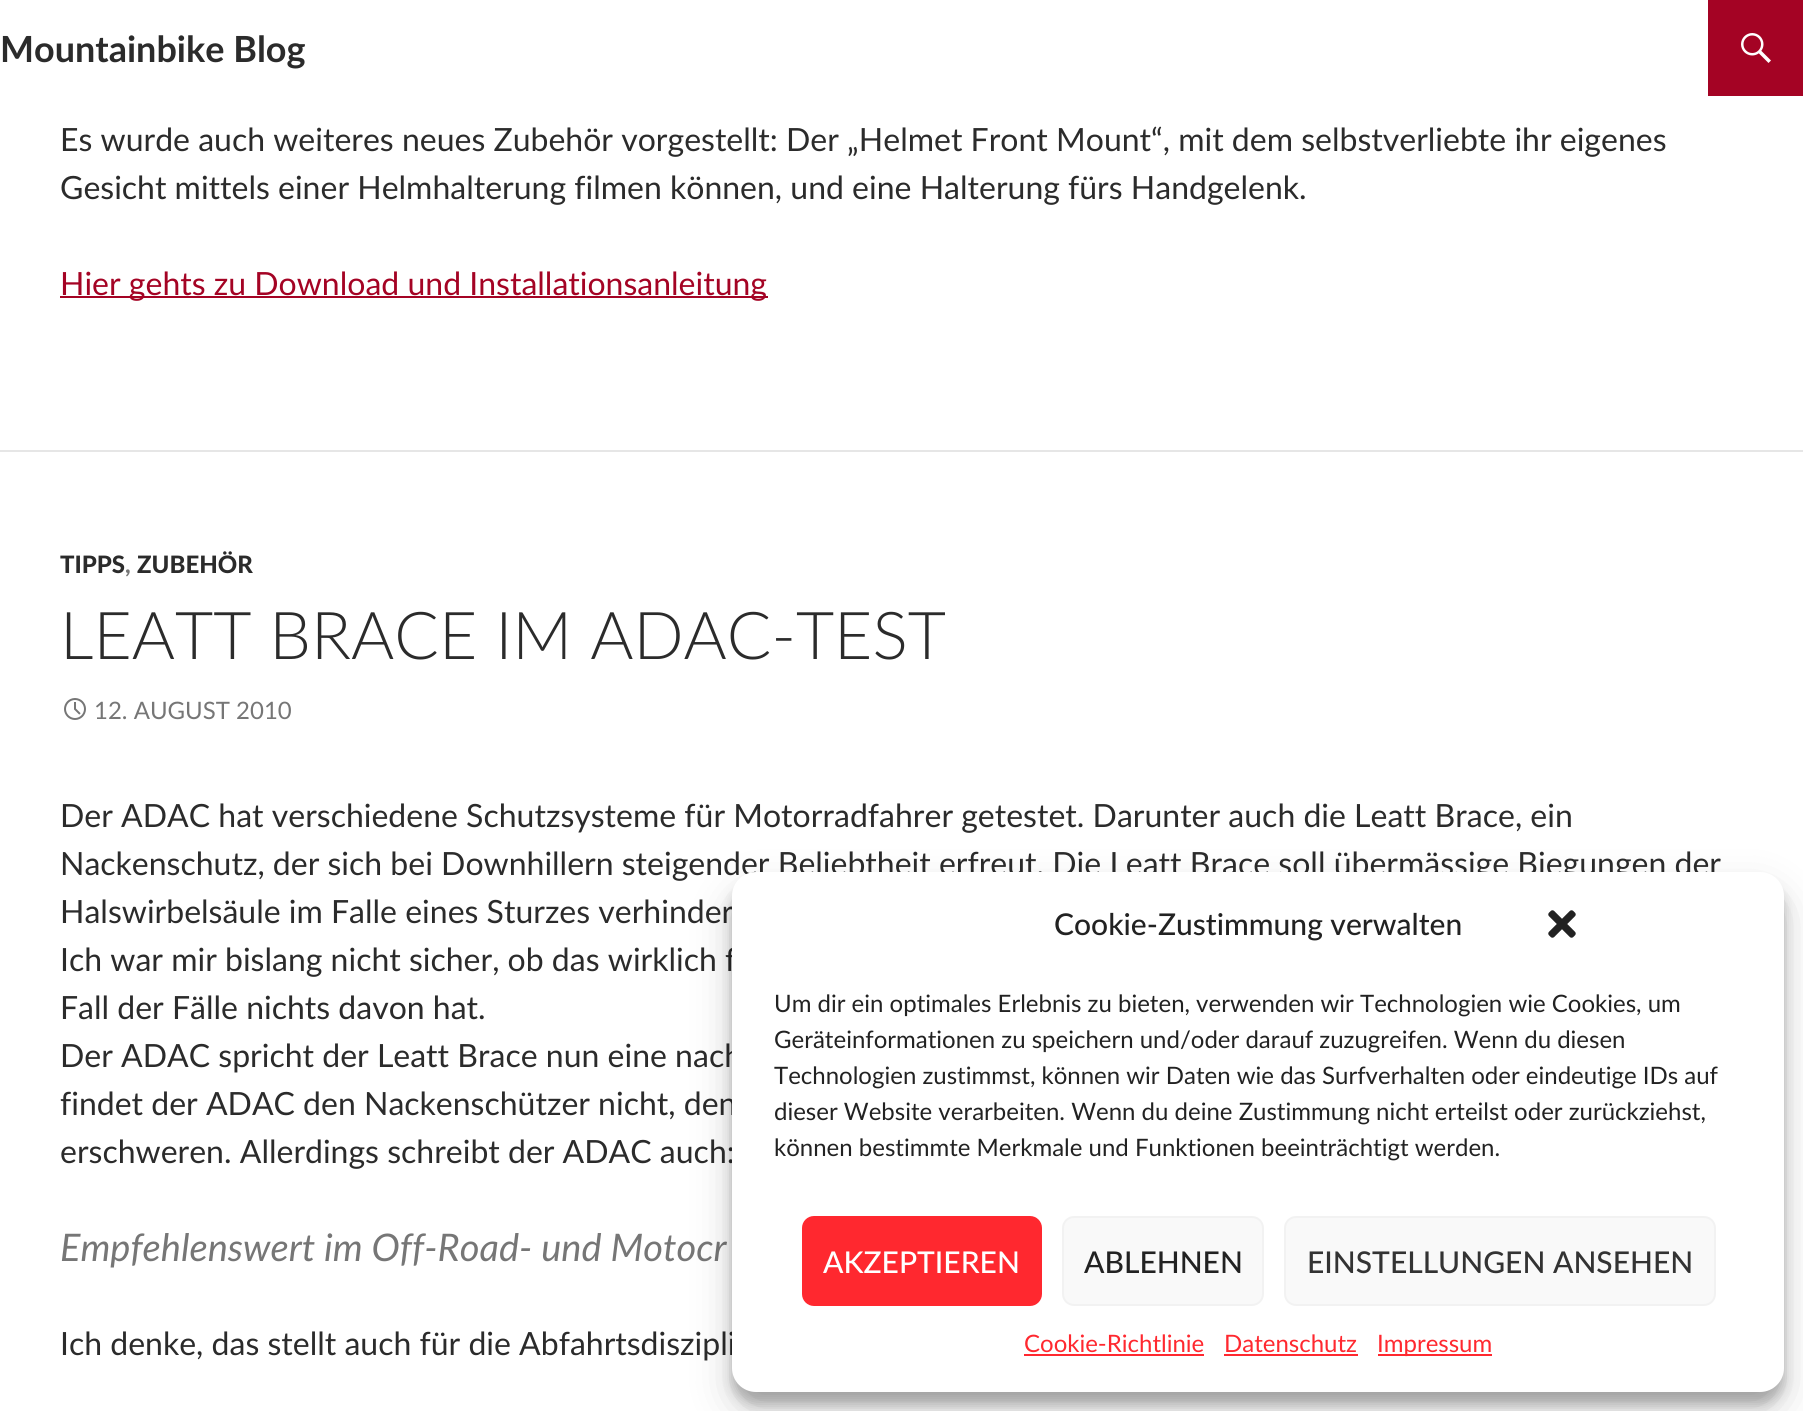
#include <cairo.h>
#include <math.h>
#include <stddef.h>

static cairo_t *c;
static void C(unsigned color){cairo_set_source_rgb(c, (color >> 16) / 255.0, (color >> 8 & 255) / 255.0, (color & 255) / 255.0);}
static void F(const char *family, double size, int italic, int bold){cairo_select_font_face(c, family, italic ? CAIRO_FONT_SLANT_ITALIC : CAIRO_FONT_SLANT_NORMAL,bold ? CAIRO_FONT_WEIGHT_BOLD : CAIRO_FONT_WEIGHT_NORMAL);cairo_set_font_size(c, size);}
static void T(double x, double y, const char *s){cairo_move_to(c, x, y);cairo_show_text(c, s);}
static void R(double x, double y, double w, double h){cairo_rectangle(c, x, y, w, h);cairo_fill(c);}
static void Q(double x, double y, double w, double h, double r){cairo_new_sub_path(c);cairo_arc(c, x + w - r, y + h - r, r, 0, M_PI / 2);cairo_arc(c, x + r, y + h - r, r, M_PI / 2, M_PI);cairo_arc(c, x + r, y + r, r, M_PI, 1.5 * M_PI);cairo_arc(c, x + w - r, y + r, r, 1.5 * M_PI, 2 * M_PI);cairo_close_path(c);}
static void S(double x, double y, double w, double h, double r, double blur, double alpha){cairo_push_group_with_content(c, CAIRO_CONTENT_ALPHA);cairo_set_operator(c, CAIRO_OPERATOR_SOURCE);for (int i = 15; i >= -15 && fmin(w, h) + blur * i / 3 > 0; i -= 2) {double e = blur * i / 6;cairo_set_source_rgba(c, 0, 0, 0, alpha * erfc((i - 1) / 8.5) / 2);Q(x - e, y - e, w + 2 * e, h + 2 * e, fmax(0, fmin(r + e + blur * .6, fmin(w, h) / 2 + e)));cairo_fill(c);}cairo_pattern_t *soft = cairo_pop_group(c);cairo_mask(c, soft);cairo_pattern_destroy(soft);}
static void I(const char *path, double x, double y, double w, double h){cairo_surface_t *image = cairo_image_surface_create_from_png(path);cairo_save(c);cairo_set_source_surface(c, image, x, y);cairo_rectangle(c, x, y, w, h);cairo_fill(c);cairo_restore(c);cairo_surface_destroy(image);}
int main(void) {
cairo_surface_t *surface = cairo_image_surface_create(CAIRO_FORMAT_RGB24, 1803, 1411);
c = cairo_create(surface);
cairo_font_options_t *options = cairo_font_options_create();
cairo_font_options_set_hint_metrics(options, CAIRO_HINT_METRICS_OFF);
cairo_font_options_set_hint_style(options, CAIRO_HINT_STYLE_NONE);
cairo_set_font_options(c, options);
cairo_set_miter_limit(c, 4);
C(0xffffff);
cairo_paint(c);
F("Lato",36,0,1);
C(0x2b2b2b);
T(0,62,"Mountainbike Blog");
C(0xa40324);
R(1708,0,95,96);
I("1.png",1741,33,30,30);
F("Lato",32,0,0);
C(0x2b2b2b);
T(60,151,"Es wurde auch weiteres neues Zubehör vorgestellt: Der „Helmet Front Mount“, mit dem selbstverliebte ihr eigenes");
T(60,199,"Gesicht mittels einer Helmhalterung filmen können, und eine Halterung fürs Handgelenk.");
C(0xa40324);
R(60,296,708,2);
T(60,295,"Hier gehts zu Download und Installationsanleitung");
C(0xe6e6e6);
R(0,450,1803,2);
F("Lato Black",24,0,0);
C(0x2b2b2b);
T(60,573,"TIPPS");
C(0x767676);
T(125,573,",");
C(0x2b2b2b);
T(137,573,"ZUBEHÖR");
F("Lato Light",66,0,0);
T(60,659,"LEATT BRACE IM ADAC-TEST");
I("2.png",64,698,22,22);
F("Lato",24,0,0);
C(0x767676);
T(94,719,"12. AUGUST 2010");
F("Lato",32,0,0);
C(0x2b2b2b);
T(60,827,"Der ADAC hat verschiedene Schutzsysteme für Motorradfahrer getestet. Darunter auch die Leatt Brace, ein");
T(60,875,"Nackenschutz, der sich bei Downhillern steigender Beliebtheit erfreut. Die Leatt Brace soll übermässige Biegungen der");
T(60,923,"Halswirbelsäule im Falle eines Sturzes verhinder");
T(60,971,"Ich war mir bislang nicht sicher, ob das wirklich f");
T(60,1019,"Fall der Fälle nichts davon hat.");
T(60,1067,"Der ADAC spricht der Leatt Brace nun eine nach");
T(60,1115,"findet der ADAC den Nackenschützer nicht, den");
T(60,1163,"erschweren. Allerdings schreibt der ADAC auch:");
F("Lato",38,1,0);
C(0x767676);
T(60,1261,"Empfehlenswert im Off-Road- und Motocr");
F("Lato",32,0,0);
C(0x2b2b2b);
T(60,1355,"Ich denke, das stellt auch für die Abfahrtsdiszipli");
C(0x000000);
S(732,884,1052,520,24,6,.23);
S(732,892,1052,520,24,20,.19);
C(0xffffff);
Q(732,872,1052,520,24);
cairo_fill(c);
F("Lato Medium",30,0,0);
C(0x222222);
T(1054,935,"Cookie-Zustimmung verwalten");
I("3.png",1548,910,28,28);
F("Lato",24,0,0);
T(774,1012,"Um dir ein optimales Erlebnis zu bieten, verwenden wir Technologien wie Cookies, um");
T(774,1048,"Geräteinformationen zu speichern und/oder darauf zuzugreifen. Wenn du diesen");
T(774,1084,"Technologien zustimmst, können wir Daten wie das Surfverhalten oder eindeutige IDs auf");
T(774,1120,"dieser Website verarbeiten. Wenn du deine Zustimmung nicht erteilst oder zurückziehst,");
T(774,1156,"können bestimmte Merkmale und Funktionen beeinträchtigt werden.");
C(0xff282f);
Q(803,1217,238,88,11);
cairo_fill_preserve(c);
cairo_stroke(c);
F("Lato Medium",30,0,0);
C(0xffffff);
T(823,1273,"AKZEPTIEREN");
C(0xf9f9f9);
Q(1063,1217,200,88,11);
cairo_fill_preserve(c);
C(0xf2f2f2);
cairo_stroke(c);
C(0x222222);
T(1084,1273,"ABLEHNEN");
C(0xf9f9f9);
Q(1285,1217,430,88,11);
cairo_fill_preserve(c);
C(0xf2f2f2);
cairo_stroke(c);
C(0x333333);
T(1307,1273,"EINSTELLUNGEN ANSEHEN");
F("Lato",24,0,0);
C(0xff282f);
T(1024,1352,"Cookie-Richtlinie");
R(1024,1354,180,2);
T(1224,1352,"Datenschutz");
R(1224,1354,134,2);
R(1378,1354,114,2);
T(1377,1352,"Impressum");
cairo_surface_write_to_png(surface, "o.png");
cairo_font_options_destroy(options);
cairo_destroy(c);
cairo_surface_destroy(surface);
return 0;
}
